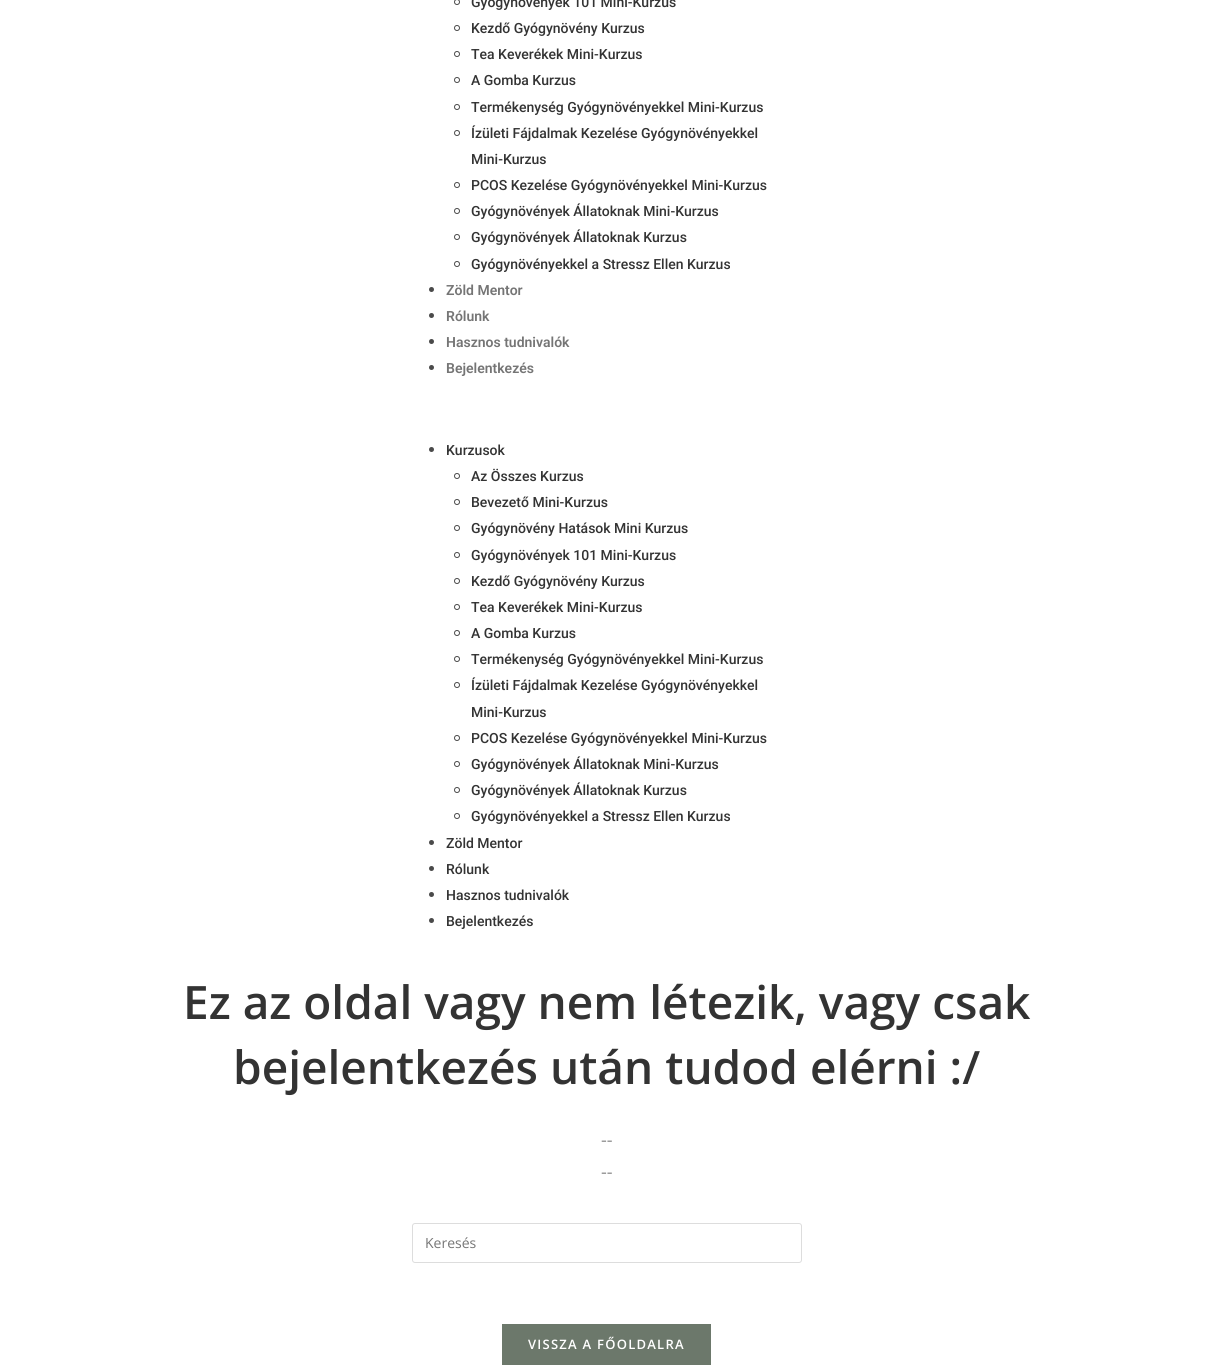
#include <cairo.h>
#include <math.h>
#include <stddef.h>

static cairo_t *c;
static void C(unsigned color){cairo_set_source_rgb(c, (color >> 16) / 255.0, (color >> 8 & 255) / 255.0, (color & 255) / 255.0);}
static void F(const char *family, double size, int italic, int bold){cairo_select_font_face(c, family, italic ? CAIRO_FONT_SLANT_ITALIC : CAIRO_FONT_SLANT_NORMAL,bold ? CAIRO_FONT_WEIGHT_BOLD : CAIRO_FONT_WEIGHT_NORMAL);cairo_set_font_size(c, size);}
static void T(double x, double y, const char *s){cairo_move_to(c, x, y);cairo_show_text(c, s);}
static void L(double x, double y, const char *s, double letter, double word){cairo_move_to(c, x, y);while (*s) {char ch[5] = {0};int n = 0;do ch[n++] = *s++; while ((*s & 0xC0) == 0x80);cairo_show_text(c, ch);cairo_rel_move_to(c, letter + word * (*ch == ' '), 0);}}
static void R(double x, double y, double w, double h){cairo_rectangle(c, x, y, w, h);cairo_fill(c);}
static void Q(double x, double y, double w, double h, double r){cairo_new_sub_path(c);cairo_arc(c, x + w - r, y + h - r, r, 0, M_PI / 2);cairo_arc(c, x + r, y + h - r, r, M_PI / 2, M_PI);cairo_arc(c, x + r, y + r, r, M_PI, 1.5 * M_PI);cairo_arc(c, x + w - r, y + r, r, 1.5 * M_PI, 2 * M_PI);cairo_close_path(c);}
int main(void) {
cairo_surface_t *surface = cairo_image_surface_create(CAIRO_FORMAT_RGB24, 1213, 1371);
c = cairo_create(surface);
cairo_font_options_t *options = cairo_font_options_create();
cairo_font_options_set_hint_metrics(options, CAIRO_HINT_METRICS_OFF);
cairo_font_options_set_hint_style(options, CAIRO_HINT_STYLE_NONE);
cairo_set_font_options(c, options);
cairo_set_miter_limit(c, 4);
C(0xffffff);
cairo_paint(c);
cairo_arc(c,457,2,2.5,0,2 * M_PI);
C(0x4a4a4a);
cairo_set_line_width(c,1);
cairo_stroke(c);
F("Roboto Medium",14,0,0);
C(0x333333);
T(471,7,"Gyógynövények 101 Mini-Kurzus");
cairo_new_path(c);
cairo_arc(c,457,28,2.5,0,2 * M_PI);
C(0x4a4a4a);
cairo_stroke(c);
C(0x333333);
T(471,33,"Kezdő Gyógynövény Kurzus");
cairo_new_path(c);
cairo_arc(c,457,54,2.5,0,2 * M_PI);
C(0x4a4a4a);
cairo_stroke(c);
C(0x333333);
T(471,59,"Tea Keverékek Mini-Kurzus");
cairo_new_path(c);
cairo_arc(c,457,80,2.5,0,2 * M_PI);
C(0x4a4a4a);
cairo_stroke(c);
C(0x333333);
T(471,85,"A Gomba Kurzus");
cairo_new_path(c);
cairo_arc(c,457,107,2.5,0,2 * M_PI);
C(0x4a4a4a);
cairo_stroke(c);
C(0x333333);
T(471,112,"Termékenység Gyógynövényekkel Mini-Kurzus");
cairo_new_path(c);
cairo_arc(c,457,133,2.5,0,2 * M_PI);
C(0x4a4a4a);
cairo_stroke(c);
C(0x333333);
T(471,138,"Ízületi Fájdalmak Kezelése Gyógynövényekkel");
T(471,164,"Mini-Kurzus");
cairo_new_path(c);
cairo_arc(c,457,185,2.5,0,2 * M_PI);
C(0x4a4a4a);
cairo_stroke(c);
C(0x333333);
T(471,190,"PCOS Kezelése Gyógynövényekkel Mini-Kurzus");
cairo_new_path(c);
cairo_arc(c,457,211,2.5,0,2 * M_PI);
C(0x4a4a4a);
cairo_stroke(c);
C(0x333333);
T(471,216,"Gyógynövények Állatoknak Mini-Kurzus");
cairo_new_path(c);
cairo_arc(c,457,237,2.5,0,2 * M_PI);
C(0x4a4a4a);
cairo_stroke(c);
C(0x333333);
T(471,242,"Gyógynövények Állatoknak Kurzus");
cairo_new_path(c);
cairo_arc(c,457,264,2.5,0,2 * M_PI);
C(0x4a4a4a);
cairo_stroke(c);
C(0x333333);
T(471,269,"Gyógynövényekkel a Stressz Ellen Kurzus");
C(0x4a4a4a);
cairo_new_path(c);
cairo_arc(c,431.5,289.5,2.5,0,2 * M_PI);
cairo_fill(c);
F("Roboto SemiBold",14,0,0);
C(0x757575);
T(446,295,"Zöld Mentor");
C(0x4a4a4a);
cairo_new_path(c);
cairo_arc(c,431.5,315.5,2.5,0,2 * M_PI);
cairo_fill(c);
C(0x757575);
T(446,321,"Rólunk");
C(0x4a4a4a);
cairo_new_path(c);
cairo_arc(c,431.5,341.5,2.5,0,2 * M_PI);
cairo_fill(c);
C(0x757575);
T(446,347,"Hasznos tudnivalók");
C(0x4a4a4a);
cairo_new_path(c);
cairo_arc(c,431.5,367.5,2.5,0,2 * M_PI);
cairo_fill(c);
C(0x757575);
T(446,373,"Bejelentkezés");
C(0x4a4a4a);
cairo_new_path(c);
cairo_arc(c,431.5,449.5,2.5,0,2 * M_PI);
cairo_fill(c);
F("Roboto Medium",14,0,0);
C(0x333333);
T(446,455,"Kurzusok");
cairo_new_path(c);
cairo_arc(c,457,476,2.5,0,2 * M_PI);
C(0x4a4a4a);
cairo_stroke(c);
C(0x333333);
T(471,481,"Az Összes Kurzus");
cairo_new_path(c);
cairo_arc(c,457,502,2.5,0,2 * M_PI);
C(0x4a4a4a);
cairo_stroke(c);
C(0x333333);
T(471,507,"Bevezető Mini-Kurzus");
cairo_new_path(c);
cairo_arc(c,457,528,2.5,0,2 * M_PI);
C(0x4a4a4a);
cairo_stroke(c);
C(0x333333);
T(471,533,"Gyógynövény Hatások Mini Kurzus");
cairo_new_path(c);
cairo_arc(c,457,555,2.5,0,2 * M_PI);
C(0x4a4a4a);
cairo_stroke(c);
C(0x333333);
T(471,560,"Gyógynövények 101 Mini-Kurzus");
cairo_new_path(c);
cairo_arc(c,457,581,2.5,0,2 * M_PI);
C(0x4a4a4a);
cairo_stroke(c);
C(0x333333);
T(471,586,"Kezdő Gyógynövény Kurzus");
cairo_new_path(c);
cairo_arc(c,457,607,2.5,0,2 * M_PI);
C(0x4a4a4a);
cairo_stroke(c);
C(0x333333);
T(471,612,"Tea Keverékek Mini-Kurzus");
cairo_new_path(c);
cairo_arc(c,457,633,2.5,0,2 * M_PI);
C(0x4a4a4a);
cairo_stroke(c);
C(0x333333);
T(471,638,"A Gomba Kurzus");
cairo_new_path(c);
cairo_arc(c,457,659,2.5,0,2 * M_PI);
C(0x4a4a4a);
cairo_stroke(c);
C(0x333333);
T(471,664,"Termékenység Gyógynövényekkel Mini-Kurzus");
cairo_new_path(c);
cairo_arc(c,457,685,2.5,0,2 * M_PI);
C(0x4a4a4a);
cairo_stroke(c);
C(0x333333);
T(471,690,"Ízületi Fájdalmak Kezelése Gyógynövényekkel");
T(471,717,"Mini-Kurzus");
cairo_new_path(c);
cairo_arc(c,457,738,2.5,0,2 * M_PI);
C(0x4a4a4a);
cairo_stroke(c);
C(0x333333);
T(471,743,"PCOS Kezelése Gyógynövényekkel Mini-Kurzus");
cairo_new_path(c);
cairo_arc(c,457,764,2.5,0,2 * M_PI);
C(0x4a4a4a);
cairo_stroke(c);
C(0x333333);
T(471,769,"Gyógynövények Állatoknak Mini-Kurzus");
cairo_new_path(c);
cairo_arc(c,457,790,2.5,0,2 * M_PI);
C(0x4a4a4a);
cairo_stroke(c);
C(0x333333);
T(471,795,"Gyógynövények Állatoknak Kurzus");
cairo_new_path(c);
cairo_arc(c,457,816,2.5,0,2 * M_PI);
C(0x4a4a4a);
cairo_stroke(c);
C(0x333333);
T(471,821,"Gyógynövényekkel a Stressz Ellen Kurzus");
C(0x4a4a4a);
cairo_new_path(c);
cairo_arc(c,431.5,842.5,2.5,0,2 * M_PI);
cairo_fill(c);
C(0x333333);
T(446,848,"Zöld Mentor");
C(0x4a4a4a);
cairo_new_path(c);
cairo_arc(c,431.5,868.5,2.5,0,2 * M_PI);
cairo_fill(c);
C(0x333333);
T(446,874,"Rólunk");
C(0x4a4a4a);
cairo_new_path(c);
cairo_arc(c,431.5,894.5,2.5,0,2 * M_PI);
cairo_fill(c);
C(0x333333);
T(446,900,"Hasznos tudnivalók");
C(0x4a4a4a);
cairo_new_path(c);
cairo_arc(c,431.5,920.5,2.5,0,2 * M_PI);
cairo_fill(c);
C(0x333333);
T(446,926,"Bejelentkezés");
F("Open Sans SemiBold",46,0,0);
T(183,1019,"Ez az oldal vagy nem létezik, vagy csak");
T(233,1084,"bejelentkezés után tudod elérni :/");
F("Open Sans Light",18,0,0);
C(0x4a4a4a);
T(601,1146,"--");
T(601,1178,"--");
Q(412.5,1223.5,389,39,2.5);
C(0xdddddd);
cairo_stroke(c);
F("Open Sans",14,0,0);
C(0x757575);
T(425,1248,"Keresés");
C(0x6c786b);
R(502,1324,209,41);
F("Open Sans SemiBold",13,0,0);
C(0xffffff);
L(528,1349,"VISSZA A FŐOLDALRA",1.25,0);
cairo_surface_write_to_png(surface, "o.png");
cairo_font_options_destroy(options);
cairo_destroy(c);
cairo_surface_destroy(surface);
return 0;
}
